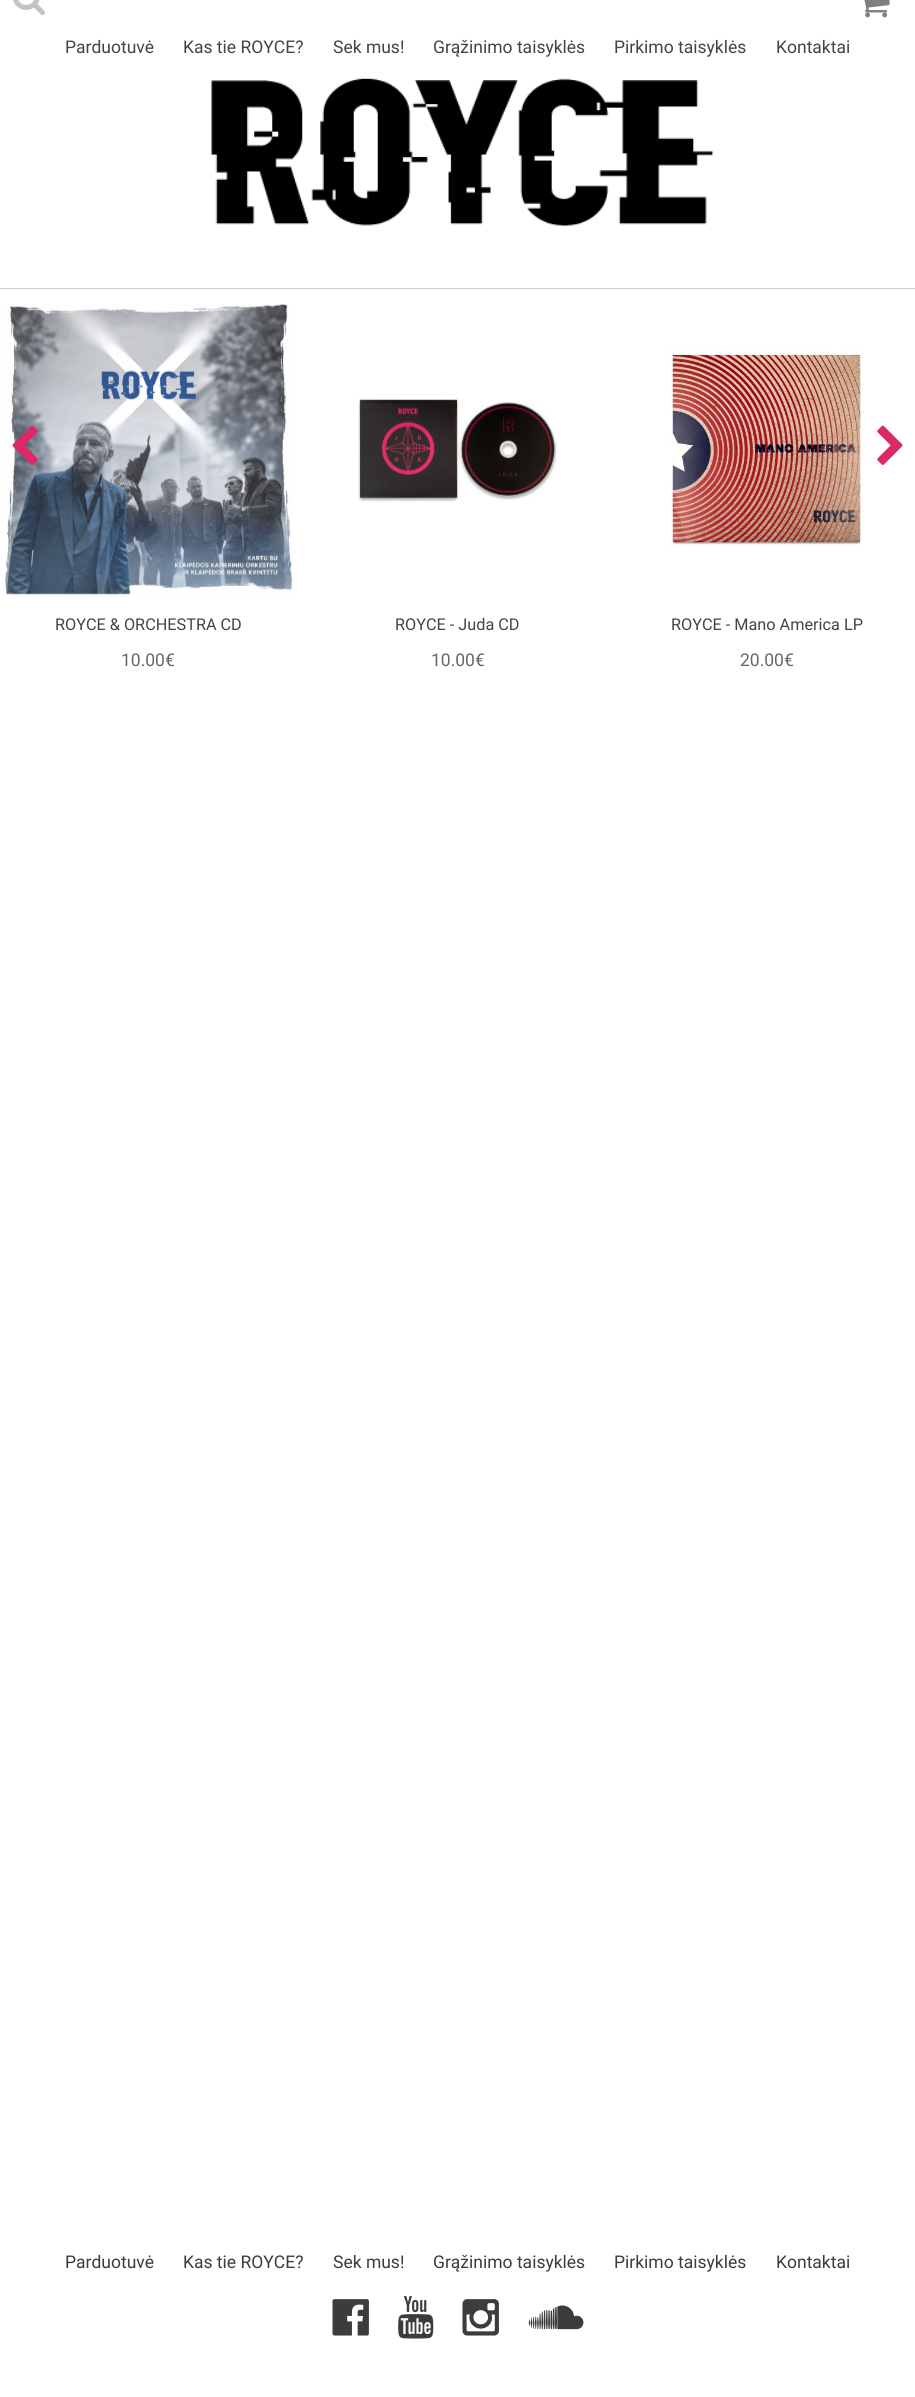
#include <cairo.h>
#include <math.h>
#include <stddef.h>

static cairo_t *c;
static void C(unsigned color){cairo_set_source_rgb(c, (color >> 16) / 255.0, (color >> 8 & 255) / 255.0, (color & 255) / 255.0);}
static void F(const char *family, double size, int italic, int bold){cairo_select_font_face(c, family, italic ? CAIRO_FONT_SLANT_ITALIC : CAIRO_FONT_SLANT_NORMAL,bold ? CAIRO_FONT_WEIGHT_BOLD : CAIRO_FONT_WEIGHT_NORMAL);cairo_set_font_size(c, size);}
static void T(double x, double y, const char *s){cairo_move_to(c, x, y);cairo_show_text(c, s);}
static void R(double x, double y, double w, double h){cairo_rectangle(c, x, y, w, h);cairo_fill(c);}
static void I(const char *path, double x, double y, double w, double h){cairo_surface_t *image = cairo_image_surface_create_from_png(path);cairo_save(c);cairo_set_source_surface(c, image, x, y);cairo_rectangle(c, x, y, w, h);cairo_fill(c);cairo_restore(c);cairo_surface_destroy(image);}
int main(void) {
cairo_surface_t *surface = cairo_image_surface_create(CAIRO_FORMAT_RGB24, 915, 2397);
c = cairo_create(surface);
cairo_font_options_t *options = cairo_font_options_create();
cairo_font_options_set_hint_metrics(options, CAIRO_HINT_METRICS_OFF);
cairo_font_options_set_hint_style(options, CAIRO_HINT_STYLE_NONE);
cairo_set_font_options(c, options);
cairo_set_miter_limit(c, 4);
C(0xffffff);
cairo_paint(c);
I("1.png",13,0,32,15);
I("2.png",864,0,26,18);
I("3.png",210,78,503,148);
F("Roboto",17.5,0,0);
C(0x444444);
T(65,53,"Parduotuvė");
T(183,53,"Kas tie ROYCE?");
T(333,53,"Sek mus!");
T(433,53,"Grąžinimo taisyklės");
T(614,53,"Pirkimo taisyklės");
T(776,53,"Kontaktai");
C(0xcccccc);
R(0,288,915,1);
I("6.png",5,304,288,291);
I("4.png",12,425,26,40);
I("5.png",877,425,26,40);
F("Roboto",16.25,0,0);
C(0x444444);
T(55,630,"ROYCE & ORCHESTRA CD");
F("Roboto",17.5,0,0);
C(0x666666);
T(121,666,"10.00€");
I("7.png",358,397,199,105);
F("Roboto",16.25,0,0);
C(0x444444);
T(395,630,"ROYCE - Juda CD");
F("Roboto",17.5,0,0);
C(0x666666);
T(431,666,"10.00€");
I("8.png",666,348,199,199);
F("Roboto",16.25,0,0);
C(0x444444);
T(671,630,"ROYCE - Mano America LP");
F("Roboto",17.5,0,0);
C(0x666666);
T(740,666,"20.00€");
C(0x3c3c3c);
T(65,2268,"Parduotuvė");
T(183,2268,"Kas tie ROYCE?");
T(333,2268,"Sek mus!");
T(433,2268,"Grąžinimo taisyklės");
T(614,2268,"Pirkimo taisyklės");
T(776,2268,"Kontaktai");
I("9.png",332,2299,37,37);
I("10.png",398,2296,36,43);
I("11.png",462,2299,37,37);
I("12.png",528,2305,56,25);
cairo_surface_write_to_png(surface, "o.png");
cairo_font_options_destroy(options);
cairo_destroy(c);
cairo_surface_destroy(surface);
return 0;
}
